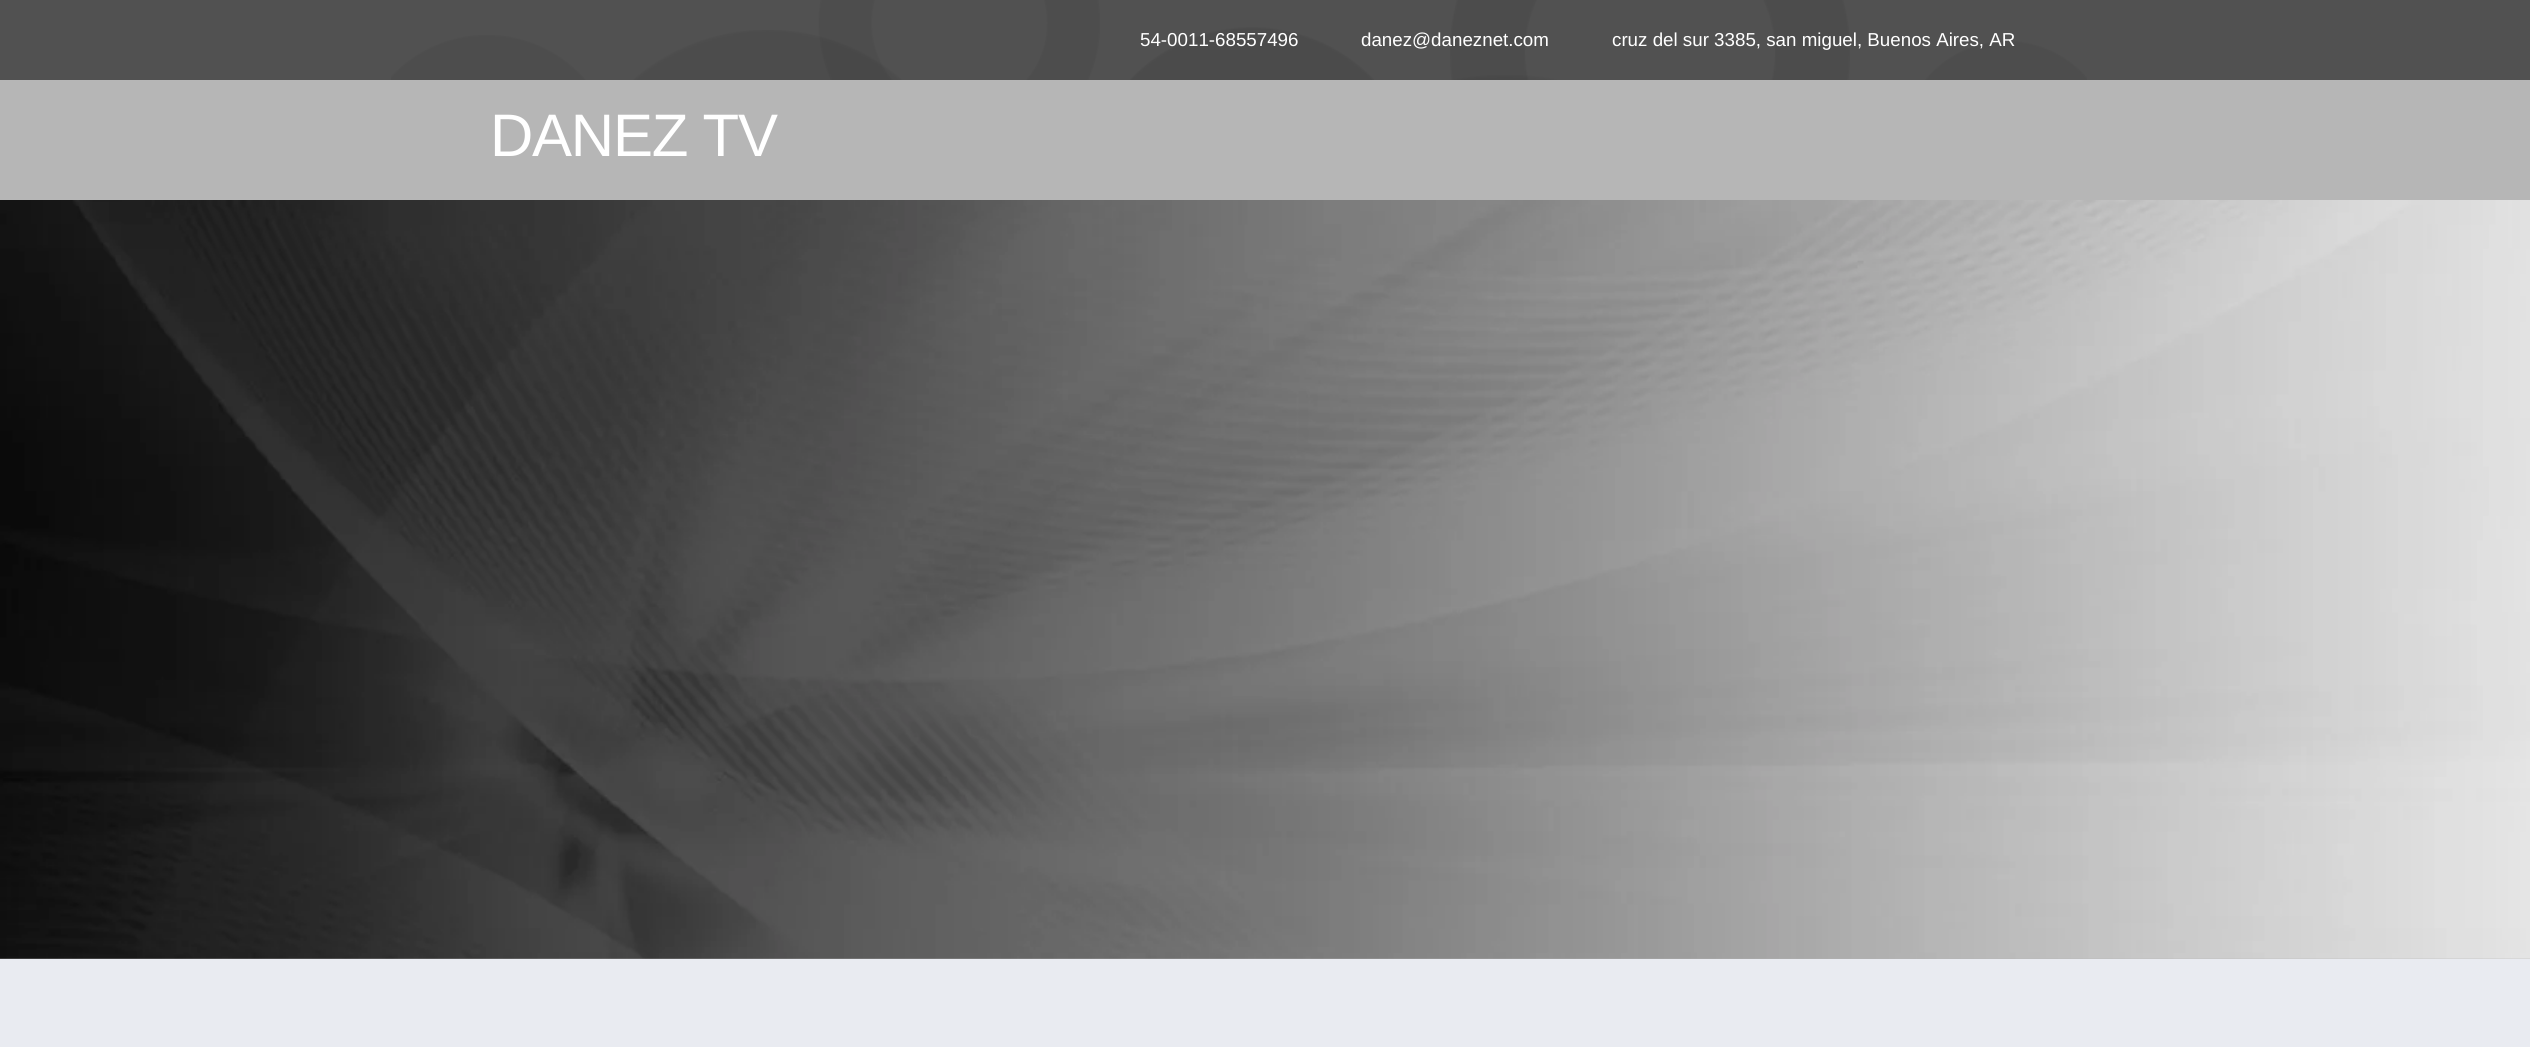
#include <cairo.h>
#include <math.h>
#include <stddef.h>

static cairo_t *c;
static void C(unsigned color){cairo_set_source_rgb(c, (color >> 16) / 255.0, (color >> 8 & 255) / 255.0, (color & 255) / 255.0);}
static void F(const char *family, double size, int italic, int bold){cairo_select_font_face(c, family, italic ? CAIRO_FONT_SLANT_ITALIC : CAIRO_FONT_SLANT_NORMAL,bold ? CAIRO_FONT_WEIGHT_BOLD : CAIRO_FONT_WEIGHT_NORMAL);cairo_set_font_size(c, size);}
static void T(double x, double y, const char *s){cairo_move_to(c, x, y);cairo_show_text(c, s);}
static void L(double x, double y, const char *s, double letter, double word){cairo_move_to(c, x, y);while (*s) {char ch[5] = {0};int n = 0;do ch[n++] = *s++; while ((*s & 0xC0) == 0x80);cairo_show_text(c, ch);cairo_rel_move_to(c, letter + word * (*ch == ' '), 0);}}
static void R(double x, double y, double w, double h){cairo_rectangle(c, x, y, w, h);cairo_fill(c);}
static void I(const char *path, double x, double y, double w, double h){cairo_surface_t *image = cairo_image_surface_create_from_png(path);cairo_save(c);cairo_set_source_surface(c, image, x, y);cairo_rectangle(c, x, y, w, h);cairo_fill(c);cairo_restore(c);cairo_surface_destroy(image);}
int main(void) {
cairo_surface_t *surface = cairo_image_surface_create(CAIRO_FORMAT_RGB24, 2530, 1047);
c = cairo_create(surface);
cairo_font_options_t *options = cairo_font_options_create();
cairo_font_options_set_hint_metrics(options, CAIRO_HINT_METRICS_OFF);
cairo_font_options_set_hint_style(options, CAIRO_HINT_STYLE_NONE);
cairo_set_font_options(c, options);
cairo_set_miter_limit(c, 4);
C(0xe9ebf1);
cairo_paint(c);
C(0xb6b6b6);
R(0,80,2530,879);
C(0x515151);
R(0,0,2530,80);
I("1.png",391,0,1696,80);
F("Liberation Sans",18.75,0,0);
C(0xffffff);
T(1140,46,"54-0011-68557496");
T(1361,46,"danez@daneznet.com");
T(1612,46,"cruz del sur 3385, san miguel, Buenos Aires, AR");
F("Liberation Sans",60,0,0);
L(490,156,"DANEZ TV",-1.25,0);
I("2.png",0,200,2530,759);
cairo_surface_write_to_png(surface, "o.png");
cairo_font_options_destroy(options);
cairo_destroy(c);
cairo_surface_destroy(surface);
return 0;
}
